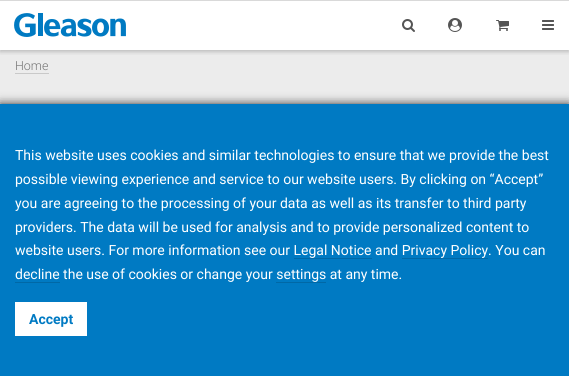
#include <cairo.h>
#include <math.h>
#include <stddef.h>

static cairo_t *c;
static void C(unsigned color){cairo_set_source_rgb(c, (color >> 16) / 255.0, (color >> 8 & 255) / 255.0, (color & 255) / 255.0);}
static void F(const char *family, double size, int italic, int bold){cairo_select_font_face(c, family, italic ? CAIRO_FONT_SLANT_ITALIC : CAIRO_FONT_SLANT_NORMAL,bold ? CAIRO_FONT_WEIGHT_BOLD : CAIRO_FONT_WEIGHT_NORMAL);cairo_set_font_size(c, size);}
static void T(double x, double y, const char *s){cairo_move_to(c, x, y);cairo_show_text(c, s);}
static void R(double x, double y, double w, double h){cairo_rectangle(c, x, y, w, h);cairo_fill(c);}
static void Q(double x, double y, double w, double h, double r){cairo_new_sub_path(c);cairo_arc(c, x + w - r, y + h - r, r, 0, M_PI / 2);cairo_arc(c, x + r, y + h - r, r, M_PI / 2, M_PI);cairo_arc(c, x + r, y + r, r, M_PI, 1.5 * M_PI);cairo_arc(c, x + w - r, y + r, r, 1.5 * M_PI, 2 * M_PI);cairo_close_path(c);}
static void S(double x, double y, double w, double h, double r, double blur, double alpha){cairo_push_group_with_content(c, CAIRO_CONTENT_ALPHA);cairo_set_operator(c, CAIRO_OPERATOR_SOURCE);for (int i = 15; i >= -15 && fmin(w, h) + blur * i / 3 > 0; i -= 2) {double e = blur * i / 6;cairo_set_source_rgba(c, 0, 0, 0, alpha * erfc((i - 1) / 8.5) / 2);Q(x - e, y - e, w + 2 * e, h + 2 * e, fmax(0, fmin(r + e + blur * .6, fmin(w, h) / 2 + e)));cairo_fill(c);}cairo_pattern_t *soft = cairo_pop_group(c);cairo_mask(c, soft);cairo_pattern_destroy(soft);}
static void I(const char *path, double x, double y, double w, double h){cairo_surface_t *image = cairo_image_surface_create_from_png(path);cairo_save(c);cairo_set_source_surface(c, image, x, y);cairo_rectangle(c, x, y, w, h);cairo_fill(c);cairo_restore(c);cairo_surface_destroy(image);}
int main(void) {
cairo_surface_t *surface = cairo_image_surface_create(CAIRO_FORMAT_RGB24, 569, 376);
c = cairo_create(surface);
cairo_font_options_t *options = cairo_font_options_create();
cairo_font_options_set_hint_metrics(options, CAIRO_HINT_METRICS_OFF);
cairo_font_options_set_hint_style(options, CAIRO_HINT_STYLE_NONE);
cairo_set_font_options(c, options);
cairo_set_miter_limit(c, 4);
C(0xffffff);
cairo_paint(c);
C(0xececec);
R(0,50,569,54);
cairo_save(c);
cairo_rectangle(c,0,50,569,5);
cairo_clip(c);
C(0x000000);
S(0,2,569,50,0,2,.2);
cairo_restore(c);
C(0xd9d9d9);
R(0,0,569,1);
I("1.png",14,13,112,24);
I("2.png",402,19,13,13);
I("3.png",448,18,14,14);
I("4.png",496,20,13,11);
I("5.png",542,20,12,10);
F("Roboto Light",12.5,0,0);
C(0x757575);
T(15,70,"Home");
C(0xc9c9c9);
R(15,73,34,1);
C(0x000000);
S(0,104,569,272,0,5,.8);
C(0x007ac3);
R(0,104,569,272);
F("Roboto",14,0,0);
C(0xffffff);
T(15,160,"This website uses cookies and similar technologies to ensure that we provide the best");
T(15,184,"possible viewing experience and service to our website users. By clicking on “Accept”");
T(15,208,"you are agreeing to the processing of your data as well as its transfer to third party");
T(15,232,"providers. The data will be used for analysis and to provide personalized content to");
T(15,255,"website users. For more information see our Legal Notice and Privacy Policy. You can");
C(0x0068a6);
R(294,258,78,1);
R(402,258,86,1);
C(0xffffff);
T(15,279,"decline the use of cookies or change your settings at any time.");
C(0x0068a6);
R(15,282,45,1);
R(276,282,50,1);
C(0xffffff);
R(15,302,72,34);
F("Roboto",14,0,1);
C(0x007ac3);
T(29,324,"Accept");
cairo_surface_write_to_png(surface, "o.png");
cairo_font_options_destroy(options);
cairo_destroy(c);
cairo_surface_destroy(surface);
return 0;
}
